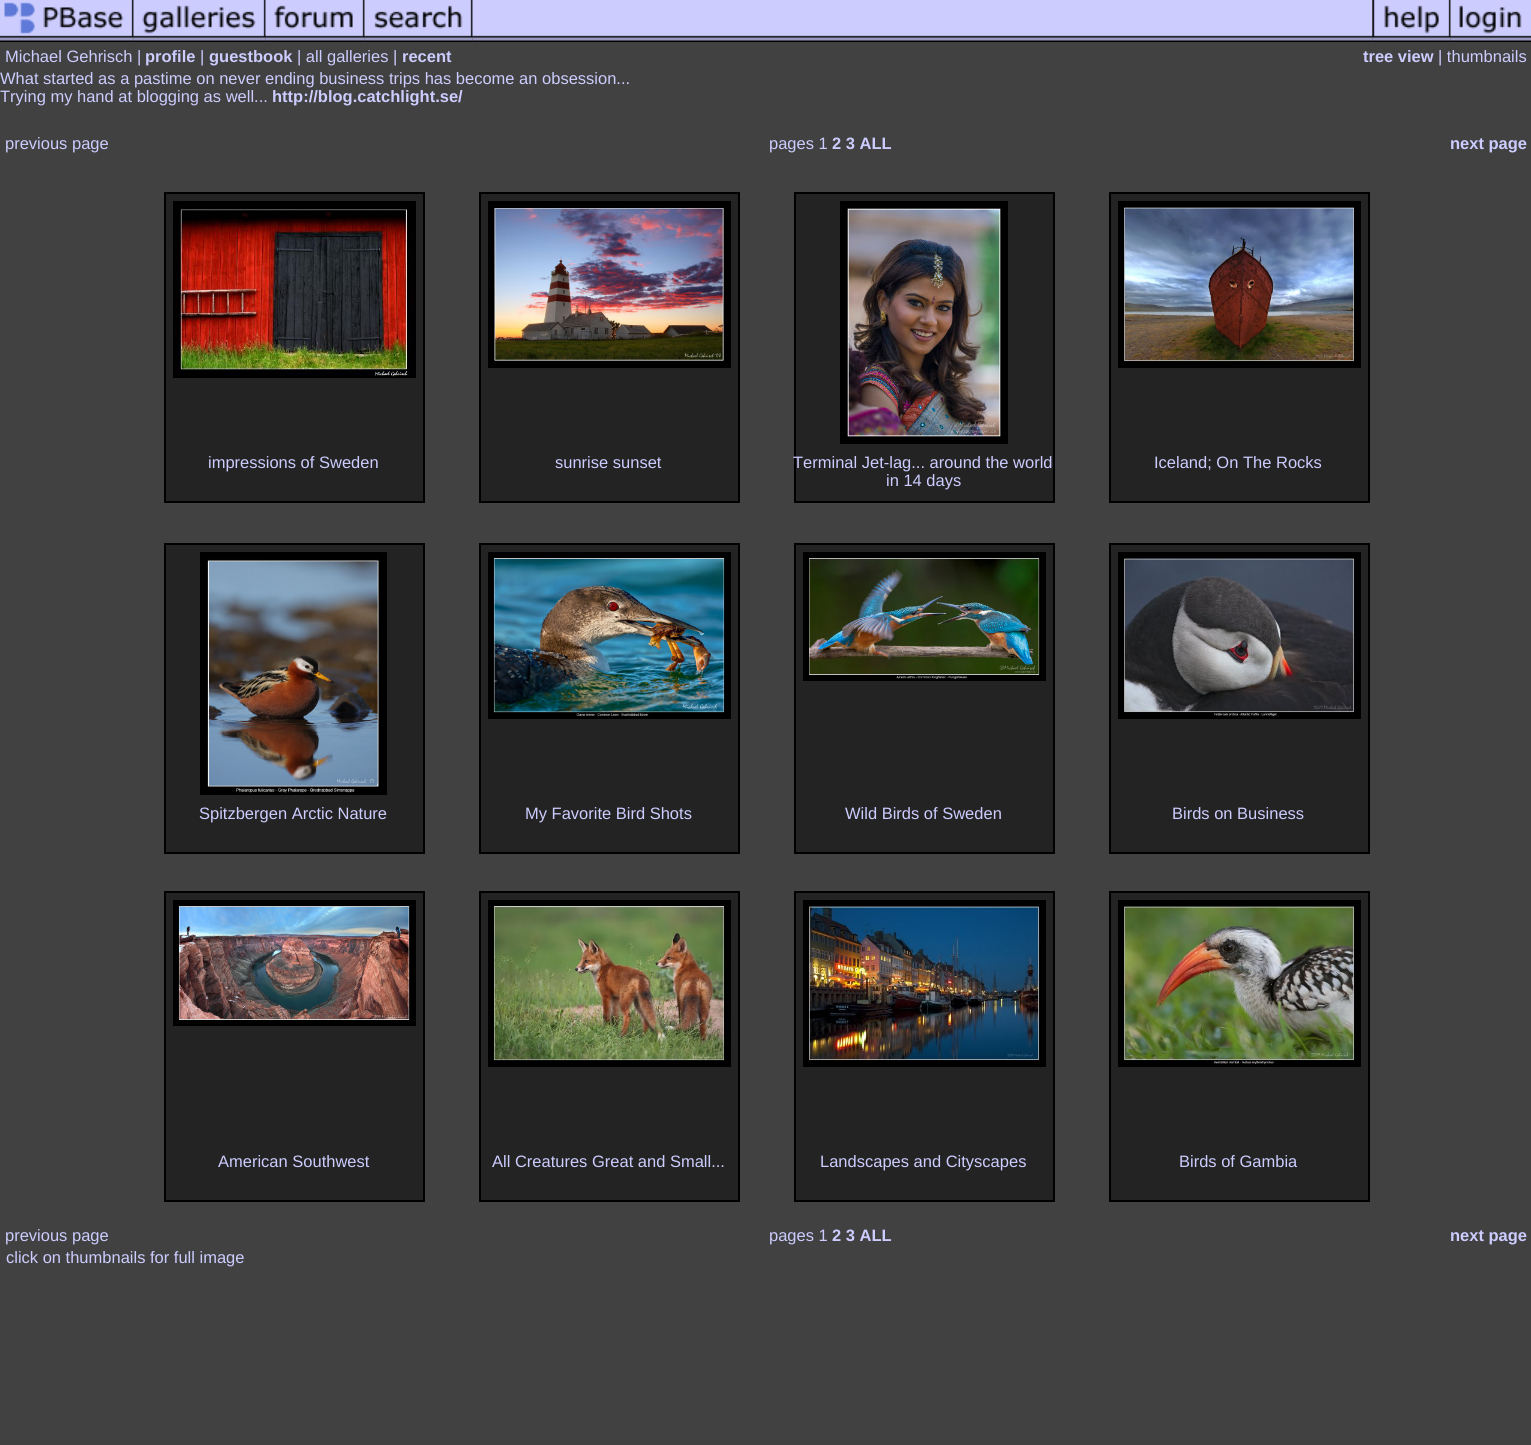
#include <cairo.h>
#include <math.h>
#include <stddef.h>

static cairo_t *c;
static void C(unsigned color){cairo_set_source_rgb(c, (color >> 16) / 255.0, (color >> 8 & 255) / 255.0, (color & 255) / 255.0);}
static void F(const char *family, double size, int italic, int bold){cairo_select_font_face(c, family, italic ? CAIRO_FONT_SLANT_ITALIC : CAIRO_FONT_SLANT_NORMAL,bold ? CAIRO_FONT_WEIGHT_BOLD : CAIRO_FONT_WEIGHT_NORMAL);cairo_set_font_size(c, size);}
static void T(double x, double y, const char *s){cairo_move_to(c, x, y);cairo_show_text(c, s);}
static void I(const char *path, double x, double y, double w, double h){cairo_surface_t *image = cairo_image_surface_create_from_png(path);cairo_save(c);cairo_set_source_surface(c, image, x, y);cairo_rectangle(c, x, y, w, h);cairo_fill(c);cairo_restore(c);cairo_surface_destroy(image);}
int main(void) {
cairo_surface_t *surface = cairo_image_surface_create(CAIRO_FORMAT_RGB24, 1531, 1445);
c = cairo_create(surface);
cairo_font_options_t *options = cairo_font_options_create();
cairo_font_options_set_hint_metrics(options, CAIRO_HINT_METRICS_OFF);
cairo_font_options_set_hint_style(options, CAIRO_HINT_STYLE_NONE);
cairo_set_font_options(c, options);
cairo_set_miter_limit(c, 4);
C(0x414141);
cairo_paint(c);
I("1.png",0,0,134,42);
I("2.png",133,0,133,42);
I("3.png",265,0,100,42);
I("4.png",364,0,109,42);
I("5.png",472,0,901,42);
I("6.png",1372,0,79,42);
I("7.png",1450,0,81,42);
F("Liberation Sans",16.5,0,0);
C(0xccccff);
T(5,62,"Michael Gehrisch |");
F("Liberation Sans",16.5,0,1);
T(145,62,"profile");
F("Liberation Sans",16.5,0,0);
T(200,62,"|");
F("Liberation Sans",16.5,0,1);
T(209,62,"guestbook");
F("Liberation Sans",16.5,0,0);
T(297,62,"| all galleries |");
F("Liberation Sans",16.5,0,1);
T(402,62,"recent");
T(1363,62,"tree view");
F("Liberation Sans",16.5,0,0);
T(1438,62,"| thumbnails");
T(0,84,"What started as a pastime on never ending business trips has become an obsession...");
T(0,102,"Trying my hand at blogging as well...");
F("Liberation Sans",16.5,0,1);
T(272,102,"http://blog.catchlight.se/");
F("Liberation Sans",16.5,0,0);
T(5,149,"previous page");
T(769,149,"pages 1");
F("Liberation Sans",16.5,0,1);
T(832,149,"2 3 ALL");
T(1450,149,"next page");
C(0x232323);
cairo_rectangle(c,165,193,259,309);
cairo_fill_preserve(c);
C(0x000000);
cairo_stroke(c);
cairo_rectangle(c,174,202,241,175);
cairo_stroke(c);
I("8.png",174,203,240,174);
F("Liberation Sans",16.5,0,0);
C(0xccccff);
T(208,468,"impressions of Sweden");
C(0x232323);
cairo_rectangle(c,480,193,259,309);
cairo_fill_preserve(c);
C(0x000000);
cairo_stroke(c);
cairo_rectangle(c,489,202,241,165);
cairo_stroke(c);
I("9.png",490,203,239,163);
C(0xccccff);
T(555,468,"sunrise sunset");
C(0x232323);
cairo_rectangle(c,795,193,259,309);
cairo_fill_preserve(c);
C(0x000000);
cairo_stroke(c);
cairo_rectangle(c,841,202,166,241);
cairo_stroke(c);
I("10.png",842,203,164,239);
C(0xccccff);
T(793,468,"Terminal Jet-lag... around the world");
T(886,486,"in 14 days");
C(0x232323);
cairo_rectangle(c,1110,193,259,309);
cairo_fill_preserve(c);
C(0x000000);
cairo_stroke(c);
cairo_rectangle(c,1119,202,241,165);
cairo_stroke(c);
I("11.png",1120,203,239,163);
C(0xccccff);
T(1154,468,"Iceland; On The Rocks");
C(0x232323);
cairo_rectangle(c,165,544,259,309);
cairo_fill_preserve(c);
C(0x000000);
cairo_stroke(c);
cairo_rectangle(c,201,553,185,241);
cairo_stroke(c);
I("12.png",202,554,183,240);
C(0xccccff);
T(199,819,"Spitzbergen Arctic Nature");
C(0x232323);
cairo_rectangle(c,480,544,259,309);
cairo_fill_preserve(c);
C(0x000000);
cairo_stroke(c);
cairo_rectangle(c,489,553,241,165);
cairo_stroke(c);
I("13.png",490,554,239,163);
C(0xccccff);
T(525,819,"My Favorite Bird Shots");
C(0x232323);
cairo_rectangle(c,795,544,259,309);
cairo_fill_preserve(c);
C(0x000000);
cairo_stroke(c);
cairo_rectangle(c,804,553,241,127);
cairo_stroke(c);
I("14.png",805,554,239,125);
C(0xccccff);
T(845,819,"Wild Birds of Sweden");
C(0x232323);
cairo_rectangle(c,1110,544,259,309);
cairo_fill_preserve(c);
C(0x000000);
cairo_stroke(c);
cairo_rectangle(c,1119,553,241,165);
cairo_stroke(c);
I("15.png",1120,554,239,163);
C(0xccccff);
T(1172,819,"Birds on Business");
C(0x232323);
cairo_rectangle(c,165,892,259,309);
cairo_fill_preserve(c);
C(0x000000);
cairo_stroke(c);
cairo_rectangle(c,174,901,241,124);
cairo_stroke(c);
I("16.png",175,902,239,122);
C(0xccccff);
T(218,1167,"American Southwest");
C(0x232323);
cairo_rectangle(c,480,892,259,309);
cairo_fill_preserve(c);
C(0x000000);
cairo_stroke(c);
cairo_rectangle(c,489,901,241,165);
cairo_stroke(c);
I("17.png",490,902,239,163);
C(0xccccff);
T(492,1167,"All Creatures Great and Small...");
C(0x232323);
cairo_rectangle(c,795,892,259,309);
cairo_fill_preserve(c);
C(0x000000);
cairo_stroke(c);
cairo_rectangle(c,804,901,241,165);
cairo_stroke(c);
I("18.png",804,902,240,163);
C(0xccccff);
T(820,1167,"Landscapes and Cityscapes");
C(0x232323);
cairo_rectangle(c,1110,892,259,309);
cairo_fill_preserve(c);
C(0x000000);
cairo_stroke(c);
cairo_rectangle(c,1119,901,241,165);
cairo_stroke(c);
I("19.png",1119,902,240,163);
C(0xccccff);
T(1179,1167,"Birds of Gambia");
T(5,1241,"previous page");
T(769,1241,"pages 1");
F("Liberation Sans",16.5,0,1);
T(832,1241,"2 3 ALL");
T(1450,1241,"next page");
F("Liberation Sans",16.5,0,0);
T(6,1263,"click on thumbnails for full image");
cairo_surface_write_to_png(surface, "o.png");
cairo_font_options_destroy(options);
cairo_destroy(c);
cairo_surface_destroy(surface);
return 0;
}
